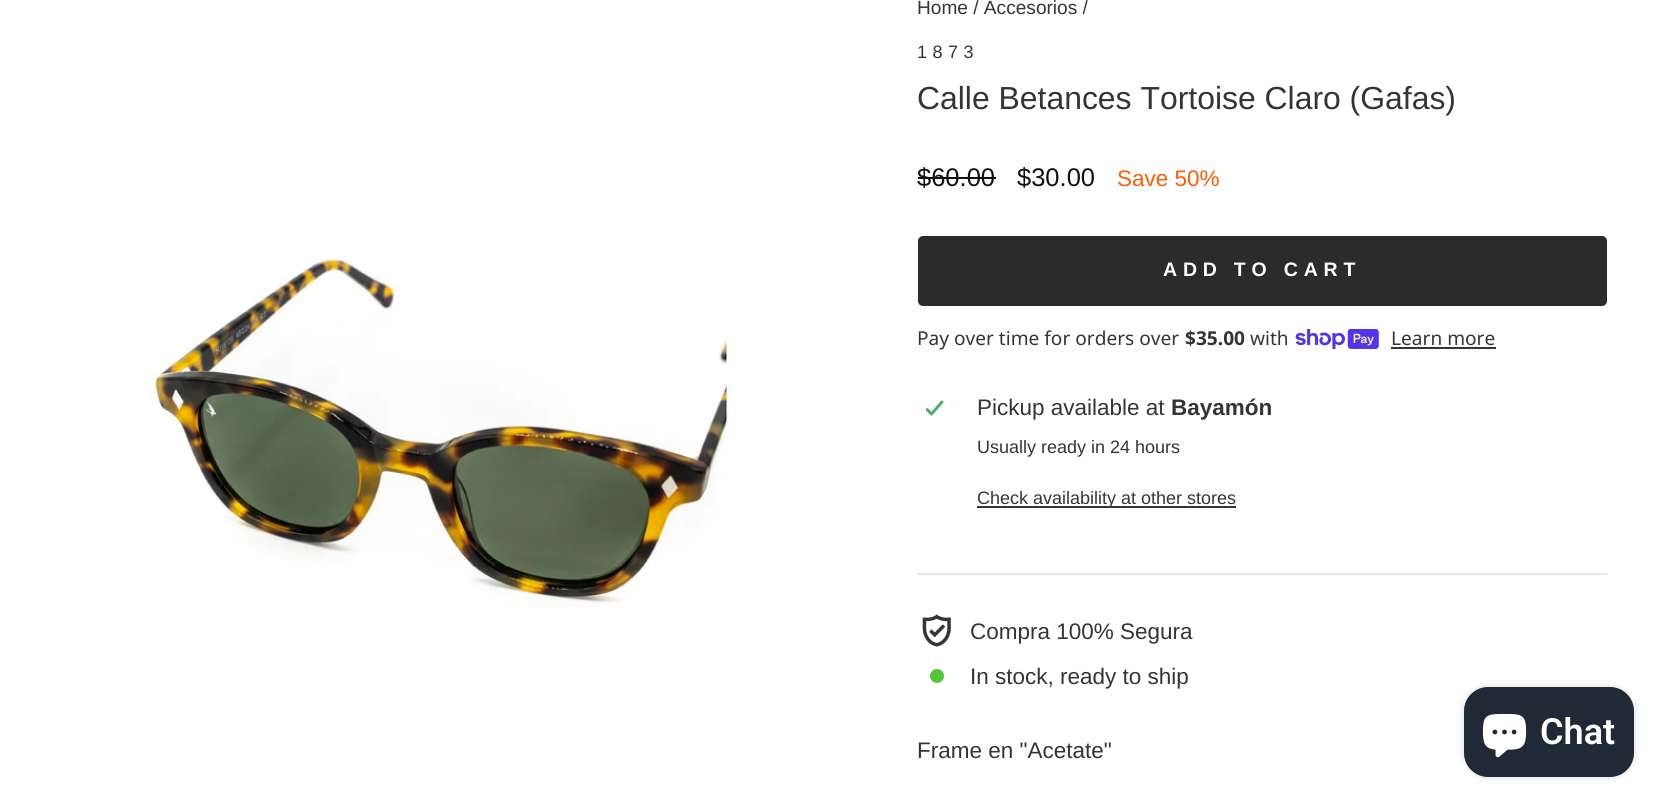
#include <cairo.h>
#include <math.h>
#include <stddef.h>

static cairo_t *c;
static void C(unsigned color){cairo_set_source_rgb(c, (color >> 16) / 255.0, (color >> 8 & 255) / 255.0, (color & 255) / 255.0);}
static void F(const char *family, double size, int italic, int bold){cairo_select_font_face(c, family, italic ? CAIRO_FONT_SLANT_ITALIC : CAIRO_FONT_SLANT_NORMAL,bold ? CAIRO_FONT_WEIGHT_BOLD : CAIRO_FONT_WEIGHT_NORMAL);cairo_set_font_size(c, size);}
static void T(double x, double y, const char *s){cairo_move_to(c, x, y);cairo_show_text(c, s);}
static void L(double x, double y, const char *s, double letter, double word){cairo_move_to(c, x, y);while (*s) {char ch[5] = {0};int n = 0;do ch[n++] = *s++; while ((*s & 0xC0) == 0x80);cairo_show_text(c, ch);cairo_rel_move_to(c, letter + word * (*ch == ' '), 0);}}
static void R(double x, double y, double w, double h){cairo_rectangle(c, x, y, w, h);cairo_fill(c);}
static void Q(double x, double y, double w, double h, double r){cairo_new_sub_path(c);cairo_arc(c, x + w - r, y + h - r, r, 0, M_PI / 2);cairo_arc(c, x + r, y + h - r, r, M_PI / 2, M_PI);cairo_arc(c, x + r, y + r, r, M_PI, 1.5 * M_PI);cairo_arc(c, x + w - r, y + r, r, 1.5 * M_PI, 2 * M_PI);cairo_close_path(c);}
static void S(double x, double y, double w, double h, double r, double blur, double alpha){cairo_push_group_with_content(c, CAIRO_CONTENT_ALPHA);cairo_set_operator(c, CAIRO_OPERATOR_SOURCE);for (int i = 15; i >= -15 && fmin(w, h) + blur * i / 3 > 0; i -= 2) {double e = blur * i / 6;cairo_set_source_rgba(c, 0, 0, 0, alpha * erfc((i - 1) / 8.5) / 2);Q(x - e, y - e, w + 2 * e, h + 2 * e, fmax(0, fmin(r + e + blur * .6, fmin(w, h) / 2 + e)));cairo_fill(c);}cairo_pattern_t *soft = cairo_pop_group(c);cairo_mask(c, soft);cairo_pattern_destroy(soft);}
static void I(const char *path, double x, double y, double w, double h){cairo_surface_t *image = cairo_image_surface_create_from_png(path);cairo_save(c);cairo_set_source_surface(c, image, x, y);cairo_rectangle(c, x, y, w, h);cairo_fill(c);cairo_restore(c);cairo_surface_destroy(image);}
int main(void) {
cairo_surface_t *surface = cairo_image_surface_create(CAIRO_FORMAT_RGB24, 1666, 808);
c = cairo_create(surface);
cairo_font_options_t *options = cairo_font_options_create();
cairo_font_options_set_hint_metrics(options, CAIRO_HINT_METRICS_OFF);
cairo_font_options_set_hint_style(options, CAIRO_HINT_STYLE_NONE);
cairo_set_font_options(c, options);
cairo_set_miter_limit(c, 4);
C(0xffffff);
cairo_paint(c);
I("1.png",153,257,579,350);
F("Liberation Sans",19.1,0,0);
C(0x353535);
T(917,14,"Home / Accesorios /");
F("Liberation Sans",18,0,0);
L(917,58,"1873",5.5,0);
F("Liberation Sans",31.9,0,0);
T(917,109,"Calle Betances Tortoise Claro (Gafas)");
F("Liberation Sans",25.5,0,0);
C(0x111111);
T(917,186,"$60.00");
R(918,177,78,2);
T(1017,186,"$30.00");
F("Liberation Sans",22.5,0,0);
C(0xff5c05);
T(1117,186,"Save 50%");
C(0x2b2b2b);
Q(918,236,689,70,5);
cairo_fill(c);
F("Liberation Sans",19.5,0,1);
C(0xffffff);
L(1163,276,"ADD TO CART",5.8,0);
F("Noto Sans",19.1,0,0);
C(0x353535);
T(917,345,"Pay over time for orders over");
F("Noto Sans",19.1,0,1);
T(1185,345,"$35.00");
F("Noto Sans",19.1,0,0);
T(1250,345,"with");
I("2.png",1295,329,84,21);
T(1391,345,"Learn more");
R(1391,347,105,2);
I("3.png",926,400,18,16);
F("Liberation Sans",22.5,0,0);
T(977,415,"Pickup available at");
F("Liberation Sans",22.5,0,1);
T(1171,415,"Bayamón");
F("Liberation Sans",18,0,0);
T(977,453,"Usually ready in 24 hours");
R(977,506,259,2);
T(977,504,"Check availability at other stores");
C(0xe8e8e1);
R(918,573,689,2);
I("4.png",922,614,29,33);
F("Liberation Sans",22.5,0,0);
C(0x353535);
T(970,639,"Compra 100% Segura");
C(0x54c63a);
cairo_new_path(c);
cairo_arc(c,937,676,7,0,2 * M_PI);
cairo_fill(c);
C(0x353535);
T(970,684,"In stock, ready to ship");
T(917,758,"Frame en \"Acetate\"");
C(0x000000);
S(1464,687,170,90,24,4,.15);
C(0x202a36);
Q(1464,687,170,90,24);
cairo_fill(c);
I("5.png",1482,714,45,44);
F("Roboto SemiBold",36,0,0);
C(0xffffff);
T(1540,744,"Chat");
cairo_surface_write_to_png(surface, "o.png");
cairo_font_options_destroy(options);
cairo_destroy(c);
cairo_surface_destroy(surface);
return 0;
}
